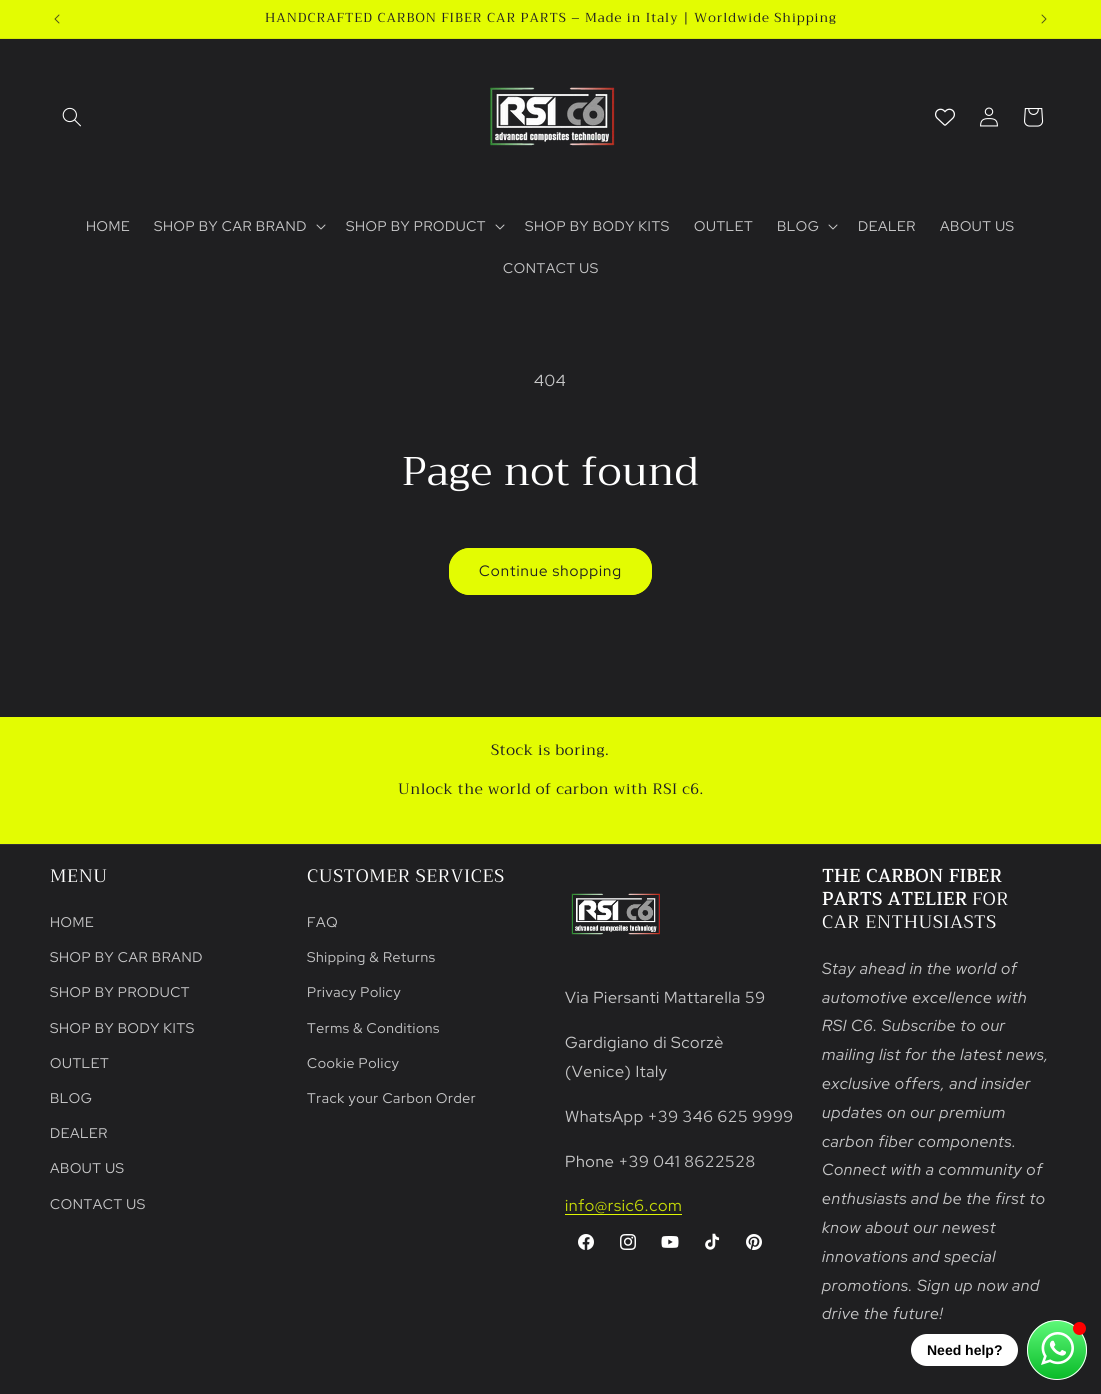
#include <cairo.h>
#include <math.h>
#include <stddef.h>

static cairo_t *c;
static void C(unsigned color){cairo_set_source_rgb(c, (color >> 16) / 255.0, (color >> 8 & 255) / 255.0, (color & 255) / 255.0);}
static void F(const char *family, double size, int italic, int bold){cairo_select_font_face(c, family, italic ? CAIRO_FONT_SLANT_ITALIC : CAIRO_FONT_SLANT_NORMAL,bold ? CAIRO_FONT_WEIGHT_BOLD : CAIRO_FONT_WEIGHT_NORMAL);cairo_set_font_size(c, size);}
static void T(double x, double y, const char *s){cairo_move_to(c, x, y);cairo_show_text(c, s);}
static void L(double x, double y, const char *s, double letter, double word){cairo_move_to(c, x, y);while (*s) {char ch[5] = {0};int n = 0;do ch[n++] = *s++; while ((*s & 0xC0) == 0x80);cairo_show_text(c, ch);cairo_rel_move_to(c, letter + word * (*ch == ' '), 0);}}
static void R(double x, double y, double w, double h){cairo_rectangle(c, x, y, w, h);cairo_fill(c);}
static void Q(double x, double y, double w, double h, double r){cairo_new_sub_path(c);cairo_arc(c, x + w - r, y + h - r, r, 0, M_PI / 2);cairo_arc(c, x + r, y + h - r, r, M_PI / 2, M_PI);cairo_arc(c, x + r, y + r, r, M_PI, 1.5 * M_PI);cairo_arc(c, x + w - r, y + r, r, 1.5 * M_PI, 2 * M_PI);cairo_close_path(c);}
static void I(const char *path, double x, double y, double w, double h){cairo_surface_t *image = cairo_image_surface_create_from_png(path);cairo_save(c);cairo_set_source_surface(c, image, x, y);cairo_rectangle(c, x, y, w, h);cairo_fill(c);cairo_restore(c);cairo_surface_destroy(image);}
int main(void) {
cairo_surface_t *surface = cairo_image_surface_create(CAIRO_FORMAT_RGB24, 1101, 1394);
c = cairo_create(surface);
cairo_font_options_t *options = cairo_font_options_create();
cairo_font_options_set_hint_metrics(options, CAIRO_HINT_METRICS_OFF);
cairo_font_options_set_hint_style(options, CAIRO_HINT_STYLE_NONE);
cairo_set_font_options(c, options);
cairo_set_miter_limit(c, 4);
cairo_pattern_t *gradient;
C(0x1f1f21);
cairo_paint(c);
C(0xe3fc02);
R(0,0,1101,38);
C(0xd3ea04);
R(0,38,1101,1);
I("1.png",54,14,6,10);
F("Trirong",13,0,0);
C(0x1f1f21);
L(265,22,"HANDCRAFTED CARBON FIBER CAR PARTS – Made in Italy | Worldwide Shipping",1,0);
I("2.png",1041,14,6,10);
I("3.png",62,107,19,20);
I("4.png",490,87,125,59);
I("5.png",935,108,20,18);
I("6.png",980,107,18,20);
I("7.png",1024,108,20,19);
F("Red Hat Display",14,0,0);
C(0xc7c7c8);
L(86,231,"HOME",.6,0);
L(154,231,"SHOP BY CAR BRAND",.6,0);
I("8.png",316,224,10,6);
L(346,231,"SHOP BY PRODUCT",.6,0);
I("8.png",495,224,10,6);
L(525,231,"SHOP BY BODY KITS",.6,0);
L(694,231,"OUTLET",.6,0);
L(777,231,"BLOG",.6,0);
I("8.png",828,224,10,6);
L(858,231,"DEALER",.6,0);
L(940,231,"ABOUT US",.6,0);
L(503,273,"CONTACT US",.6,0);
F("Red Hat Display",16,0,0);
L(534,386,"404",.6,0);
F("Trirong",40,0,0);
C(0xffffff);
L(402,485,"Page not found",.6,0);
C(0xe3fc02);
Q(449,548,203,47,21);
cairo_fill(c);
Q(449.5,548.5,202,46,20.5);
cairo_set_line_width(c,1);
cairo_stroke(c);
F("Red Hat Display",15,0,0);
C(0x1f1f21);
L(479,576,"Continue shopping",1,0);
cairo_save(c);
Q(1027,1320,60,60,30);
cairo_clip(c);
gradient = cairo_pattern_create_linear(1057,1321,1057,1379);
cairo_pattern_add_color_stop_rgba(gradient,0,0.365,0.973,0.471,1);
cairo_pattern_add_color_stop_rgba(gradient,1,0.039,0.733,0.161,1);
cairo_set_source(c,gradient);
cairo_pattern_destroy(gradient);
R(1027,1321,60,58);
cairo_restore(c);
cairo_arc(c,1057,1350,29.5,0,2 * M_PI);
C(0xffffff);
cairo_stroke(c);
I("9.png",1041,1332,33,33);
C(0xff0000);
cairo_arc(c,1079.5,1328.5,6.5,0,2 * M_PI);
cairo_fill(c);
C(0xffffff);
Q(911,1334,107,32,16);
cairo_fill(c);
F("Liberation Sans",14,0,1);
C(0x000000);
T(927,1355,"Need help?");
C(0xe3fc02);
R(0,717,1101,127);
F("Trirong",15,0,0);
C(0x1f1f21);
L(491,755,"Stock is boring.",.6,0);
L(398,794,"Unlock the world of carbon with RSI c6.",.6,0);
C(0x313133);
R(0,844,1101,1);
F("Trirong",18,0,0);
C(0xffffff);
L(50,882,"MENU",.6,0);
F("Red Hat Display",14,0,0);
C(0xc7c7c8);
L(50,927,"HOME",.6,0);
L(50,962,"SHOP BY CAR BRAND",.6,0);
L(50,997,"SHOP BY PRODUCT",.6,0);
L(50,1033,"SHOP BY BODY KITS",.6,0);
L(50,1068,"OUTLET",.6,0);
L(50,1103,"BLOG",.6,0);
L(50,1138,"DEALER",.6,0);
L(50,1173,"ABOUT US",.6,0);
L(50,1209,"CONTACT US",.6,0);
F("Trirong",18,0,0);
C(0xffffff);
L(307,882,"CUSTOMER SERVICES",.6,0);
F("Red Hat Display",14,0,0);
C(0xc7c7c8);
L(307,927,"FAQ",.6,0);
L(307,962,"Shipping & Returns",.6,0);
L(307,997,"Privacy Policy",.6,0);
L(307,1033,"Terms & Conditions",.6,0);
L(307,1068,"Cookie Policy",.6,0);
L(307,1103,"Track your Carbon Order",.6,0);
I("10.png",571,893,89,42);
F("Red Hat Display",16,0,0);
L(565,1003,"Via Piersanti Mattarella 59",.6,0);
L(565,1048,"Gardigiano di Scorzè",.6,0);
L(565,1077,"(Venice) Italy",.6,0);
L(565,1122,"WhatsApp +39 346 625 9999",.6,0);
L(565,1167,"Phone +39 041 8622528",.6,0);
C(0xc6db07);
L(565,1211,"info@rsic6.com",.6,0);
C(0xdff703);
R(565,1214,117,1);
I("11.png",578,1234,16,16);
I("12.png",620,1234,16,16);
I("13.png",661,1236,18,12);
I("14.png",705,1233,15,17);
I("15.png",746,1234,16,16);
F("Trirong",18,0,1);
C(0xffffff);
L(822,882,"THE CARBON FIBER",.6,0);
L(822,905,"PARTS ATELIER",.6,0);
F("Trirong",18,0,0);
L(972,905,"FOR",.6,0);
L(822,928,"CAR ENTHUSIASTS",.6,0);
F("Red Hat Display",16,1,0);
C(0xc7c7c8);
L(822,974,"Stay ahead in the world of",.6,0);
L(822,1003,"automotive excellence with",.6,0);
L(822,1031,"RSI C6. Subscribe to our",.6,0);
L(822,1060,"mailing list for the latest news,",.6,0);
L(822,1089,"exclusive offers, and insider",.6,0);
L(822,1118,"updates on our premium",.6,0);
L(822,1147,"carbon fiber components.",.6,0);
L(822,1175,"Connect with a community of",.6,0);
L(822,1204,"enthusiasts and be the first to",.6,0);
L(822,1233,"know about our newest",.6,0);
L(822,1262,"innovations and special",.6,0);
L(822,1291,"promotions. Sign up now and",.6,0);
L(822,1319,"drive the future!",.6,0);
cairo_surface_write_to_png(surface, "o.png");
cairo_font_options_destroy(options);
cairo_destroy(c);
cairo_surface_destroy(surface);
return 0;
}
